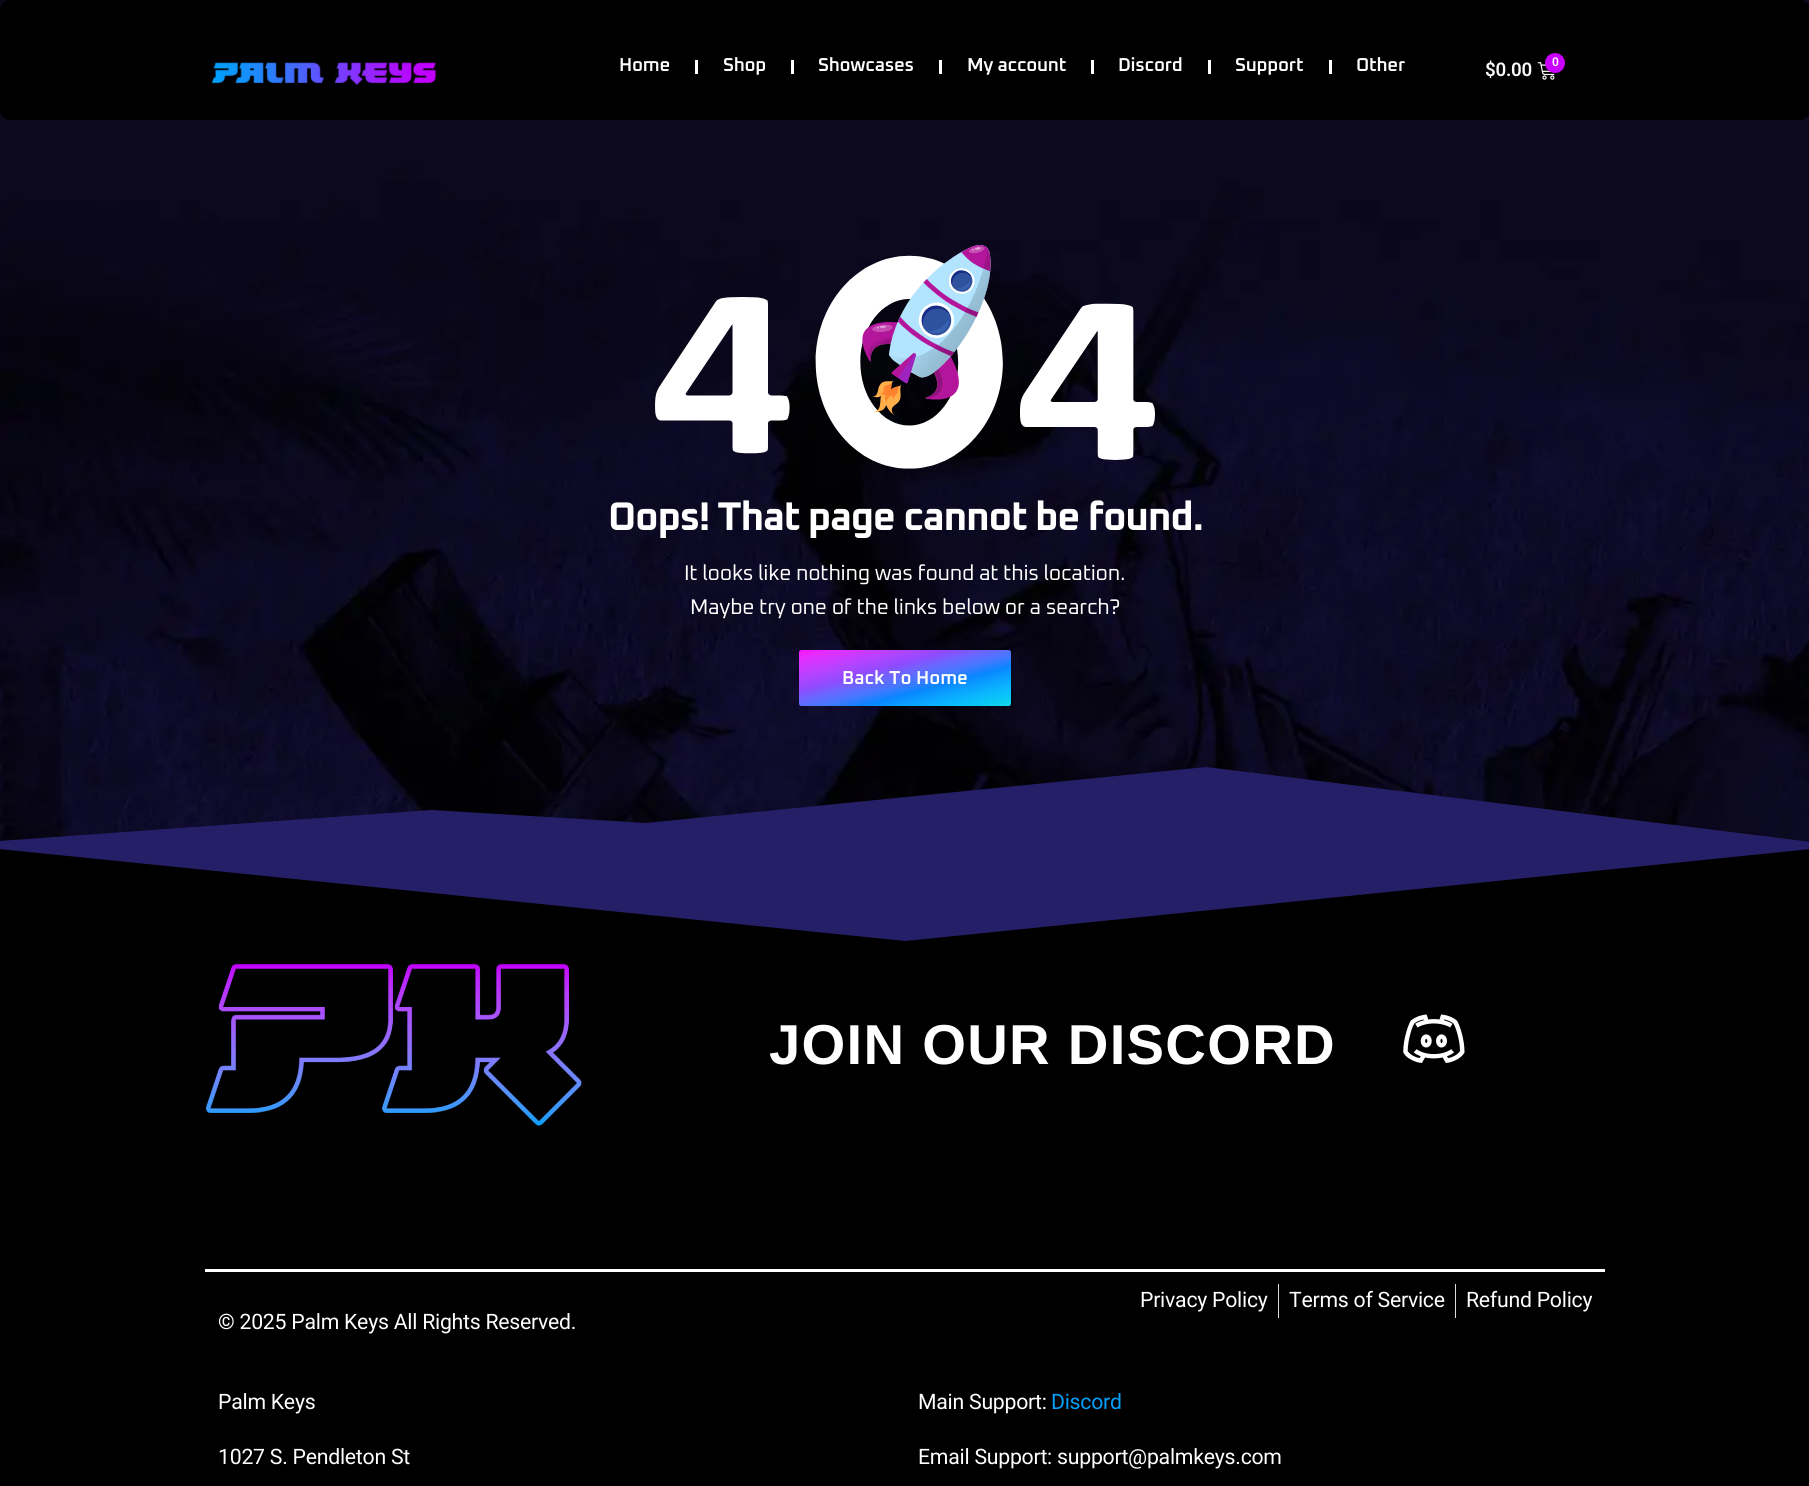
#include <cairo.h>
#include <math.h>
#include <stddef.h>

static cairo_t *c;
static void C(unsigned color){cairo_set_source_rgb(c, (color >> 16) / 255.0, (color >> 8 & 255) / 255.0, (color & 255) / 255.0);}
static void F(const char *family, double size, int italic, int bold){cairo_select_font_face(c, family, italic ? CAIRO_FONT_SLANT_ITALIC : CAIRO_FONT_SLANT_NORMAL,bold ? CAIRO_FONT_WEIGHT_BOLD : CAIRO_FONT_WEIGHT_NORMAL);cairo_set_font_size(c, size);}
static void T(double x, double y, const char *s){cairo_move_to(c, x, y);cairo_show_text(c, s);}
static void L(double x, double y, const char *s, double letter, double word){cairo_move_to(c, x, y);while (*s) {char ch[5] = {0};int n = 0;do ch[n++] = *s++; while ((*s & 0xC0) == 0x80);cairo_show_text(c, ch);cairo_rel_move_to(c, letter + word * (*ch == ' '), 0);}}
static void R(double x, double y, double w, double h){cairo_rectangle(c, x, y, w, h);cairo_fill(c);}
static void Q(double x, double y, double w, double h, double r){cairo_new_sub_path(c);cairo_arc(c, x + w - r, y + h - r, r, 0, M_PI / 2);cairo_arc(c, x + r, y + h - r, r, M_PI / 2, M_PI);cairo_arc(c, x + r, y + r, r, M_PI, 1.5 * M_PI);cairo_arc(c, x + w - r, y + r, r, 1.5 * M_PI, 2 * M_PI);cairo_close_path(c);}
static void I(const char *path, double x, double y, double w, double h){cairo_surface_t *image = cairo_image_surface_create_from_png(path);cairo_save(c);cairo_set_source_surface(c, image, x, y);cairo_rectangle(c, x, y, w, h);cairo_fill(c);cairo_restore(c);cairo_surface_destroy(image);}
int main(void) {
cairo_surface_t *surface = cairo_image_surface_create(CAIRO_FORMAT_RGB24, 1809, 1486);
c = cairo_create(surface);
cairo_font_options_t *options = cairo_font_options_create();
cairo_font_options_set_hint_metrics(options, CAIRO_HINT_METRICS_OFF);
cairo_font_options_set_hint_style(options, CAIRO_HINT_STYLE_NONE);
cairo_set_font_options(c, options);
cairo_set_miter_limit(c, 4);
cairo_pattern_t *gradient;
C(0xffffff);
cairo_paint(c);
I("1.png",0,0,1809,842);
C(0x000000);
Q(3,3,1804,114,7);
cairo_fill_preserve(c);
cairo_set_line_width(c,6);
cairo_stroke(c);
I("2.png",211,62,226,23);
F("Oxanium SemiBold",18.75,0,0);
C(0xffffff);
L(619,71,"Home",-.25,0);
R(695,60,3,14);
L(723,71,"Shop",-.25,0);
R(791,60,3,14);
L(818,71,"Showcases",-.25,0);
R(939,60,3,14);
L(967,71,"My account",-.25,0);
R(1091,60,3,14);
L(1118,71,"Discord",-.25,0);
R(1208,60,3,14);
L(1235,71,"Support",-.25,0);
R(1329,60,3,14);
L(1356,71,"Other",-.25,0);
F("Roboto SemiBold",18.75,0,0);
C(0xf9f9f9);
L(1485,76,"$0.00",-.25,0);
I("3.png",1537,62,18,18);
C(0xc900ff);
cairo_arc(c,1555,63,10,0,2 * M_PI);
cairo_fill(c);
F("Roboto SemiBold",12,0,0);
C(0xffffff);
L(1552,66,"0",-.25,0);
I("4.png",655,245,500,224);
F("Oxanium",40,0,1);
L(608,530,"Oops! That page cannot be found.",-1.25,0);
F("Oxanium",21.25,0,0);
L(684,580,"It looks like nothing was found at this location.",-.25,0);
L(690,614,"Maybe try one of the links below or a search?",-.25,0);
gradient = cairo_pattern_create_linear(891,626,919,731);
cairo_pattern_add_color_stop_rgba(gradient,0,0.976,0.047,1,1);
cairo_pattern_add_color_stop_rgba(gradient,.09,0.878,0.153,1,1);
cairo_pattern_add_color_stop_rgba(gradient,.18,0.773,0.204,1,1);
cairo_pattern_add_color_stop_rgba(gradient,.27,0.663,0.243,1,1);
cairo_pattern_add_color_stop_rgba(gradient,.36,0.541,0.267,1,1);
cairo_pattern_add_color_stop_rgba(gradient,.45,0.396,0.376,1,1);
cairo_pattern_add_color_stop_rgba(gradient,.55,0.235,0.451,1,1);
cairo_pattern_add_color_stop_rgba(gradient,.64,0,0.506,1,1);
cairo_pattern_add_color_stop_rgba(gradient,.73,0,0.612,1,1);
cairo_pattern_add_color_stop_rgba(gradient,.82,0,0.702,1,1);
cairo_pattern_add_color_stop_rgba(gradient,.91,0,0.776,0.961,1);
cairo_pattern_add_color_stop_rgba(gradient,1,0.047,0.843,0.91,1);
cairo_set_source(c,gradient);
cairo_pattern_destroy(gradient);
Q(799,650,212,56,2.5);
cairo_fill(c);
cairo_set_source_rgba(c,1,1,1,0.04);
R(799,650,212,56);
F("Oxanium SemiBold",18.75,0,0);
C(0xffffff);
T(842,684,"Back To Home");
C(0x251f68);
cairo_new_path(c);
cairo_move_to(c,431,810);
cairo_line_to(c,646,823);
cairo_line_to(c,1206,767);
cairo_line_to(c,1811,842);
cairo_line_to(c,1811,845);
cairo_line_to(c,-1,845);
cairo_line_to(c,-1,841);
cairo_fill(c);
C(0x000000);
R(0,849,1809,637);
cairo_save(c);
cairo_rectangle(c,0,843,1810,100);
cairo_clip(c);
C(0x251f68);
cairo_new_path(c);
cairo_move_to(c,905,941);
cairo_line_to(c,-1,849);
cairo_line_to(c,-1,842);
cairo_line_to(c,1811,842);
cairo_line_to(c,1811,849);
cairo_close_path(c);
cairo_fill(c);
cairo_restore(c);
I("5.png",205,964,377,162);
F("Liberation Sans",56.25,0,1);
C(0xffffff);
L(769,1064,"JOIN OUR DISCORD",1.25,0);
I("6.png",1403,1014,62,49);
R(205,1269,1400,3);
F("Roboto",21.25,0,0);
L(1140,1307,"Privacy Policy",-.25,0);
C(0xdddddd);
R(1278,1284,1,34);
C(0xffffff);
L(1289,1307,"Terms of Service",-.25,0);
C(0xdddddd);
R(1455,1284,1,34);
C(0xffffff);
L(1466,1307,"Refund Policy",-.25,0);
L(218,1329,"© 2025 Palm Keys All Rights Reserved.",-.25,0);
L(218,1409,"Palm Keys",-.25,0);
L(218,1464,"1027 S. Pendleton St",-.25,0);
L(918,1409,"Main Support:",-.25,0);
C(0x049efb);
L(1051,1409,"Discord",-.25,0);
C(0xffffff);
L(918,1464,"Email Support: support@palmkeys.com",-.25,0);
cairo_surface_write_to_png(surface, "o.png");
cairo_font_options_destroy(options);
cairo_destroy(c);
cairo_surface_destroy(surface);
return 0;
}
